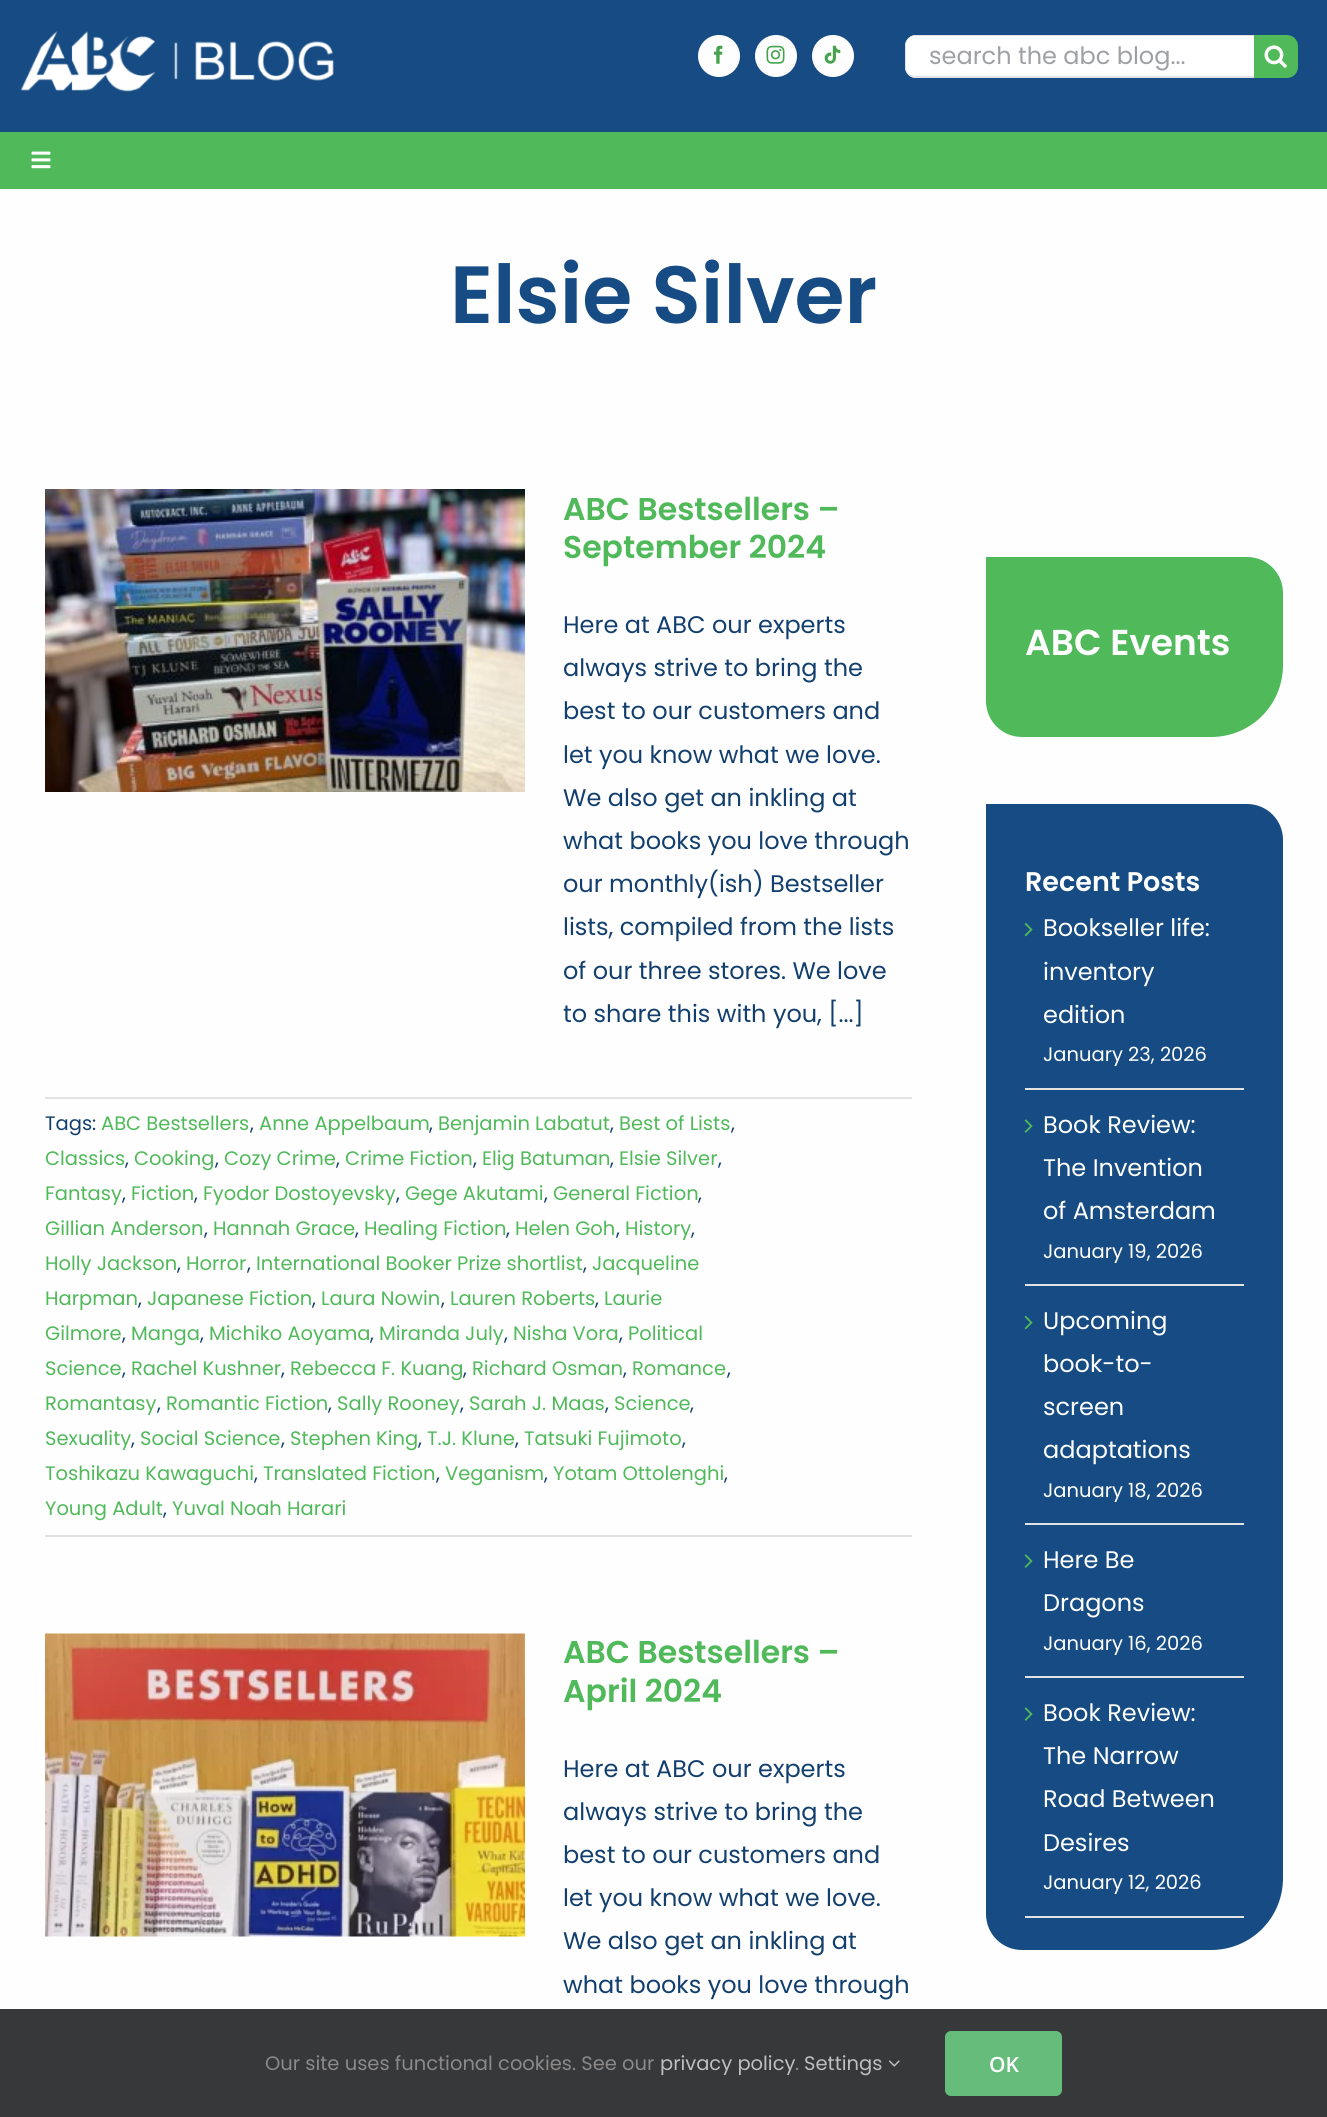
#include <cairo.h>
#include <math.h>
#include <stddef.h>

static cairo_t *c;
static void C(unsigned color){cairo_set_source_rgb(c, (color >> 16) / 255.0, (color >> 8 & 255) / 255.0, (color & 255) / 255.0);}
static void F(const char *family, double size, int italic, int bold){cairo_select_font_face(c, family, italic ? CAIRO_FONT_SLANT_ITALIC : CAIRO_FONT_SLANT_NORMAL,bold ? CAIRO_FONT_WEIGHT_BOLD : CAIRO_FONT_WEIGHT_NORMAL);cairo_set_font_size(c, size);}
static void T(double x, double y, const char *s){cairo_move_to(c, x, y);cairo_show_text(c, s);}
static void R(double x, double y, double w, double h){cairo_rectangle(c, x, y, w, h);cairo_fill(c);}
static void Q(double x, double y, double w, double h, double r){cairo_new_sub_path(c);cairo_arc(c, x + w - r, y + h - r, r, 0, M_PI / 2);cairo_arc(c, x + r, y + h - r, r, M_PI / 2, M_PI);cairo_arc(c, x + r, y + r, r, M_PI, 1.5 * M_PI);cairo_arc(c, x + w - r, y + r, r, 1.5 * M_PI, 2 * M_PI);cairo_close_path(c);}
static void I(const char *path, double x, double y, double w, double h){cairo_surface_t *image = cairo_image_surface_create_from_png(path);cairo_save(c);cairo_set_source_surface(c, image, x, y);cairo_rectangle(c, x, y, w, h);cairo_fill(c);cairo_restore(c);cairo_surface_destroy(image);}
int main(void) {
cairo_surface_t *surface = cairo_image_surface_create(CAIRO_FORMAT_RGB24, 1327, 2117);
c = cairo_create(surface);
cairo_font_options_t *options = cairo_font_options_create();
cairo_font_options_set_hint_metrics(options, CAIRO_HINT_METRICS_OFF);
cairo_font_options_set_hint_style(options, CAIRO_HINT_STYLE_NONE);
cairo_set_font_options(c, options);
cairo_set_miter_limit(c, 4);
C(0xfefefe);
cairo_paint(c);
C(0x50b95a);
R(0,132,1327,57);
C(0x164c83);
R(0,0,1327,132);
I("1.png",20,31,314,61);
C(0xfefefe);
cairo_arc(c,719,56,21,0,2 * M_PI);
cairo_fill(c);
I("2.png",714,45,9,19);
cairo_arc(c,776,56,21,0,2 * M_PI);
cairo_fill(c);
I("3.png",766,45,19,19);
cairo_arc(c,833,56,21,0,2 * M_PI);
cairo_fill(c);
I("4.png",824,45,17,19);
C(0xffffff);
cairo_new_path(c);
cairo_move_to(c,916,35);
cairo_line_to(c,1254,35);
cairo_line_to(c,1254,78);
cairo_line_to(c,916,78);
cairo_curve_to(c,910,78,905,73,905,67);
cairo_line_to(c,905,46);
cairo_curve_to(c,905,40,910,35,916,35);
cairo_close_path(c);
cairo_fill(c);
C(0xe2e2e2);
cairo_new_path(c);
cairo_move_to(c,915,36);
cairo_line_to(c,1254,36);
cairo_line_to(c,1254,35);
cairo_line_to(c,916,35);
cairo_curve_to(c,910,35,905,40,905,46);
cairo_line_to(c,905,67);
cairo_curve_to(c,905,73,910,78,916,78);
cairo_line_to(c,1254,78);
cairo_line_to(c,1254,76);
cairo_line_to(c,915,76);
cairo_curve_to(c,910,76,906,72,906,68);
cairo_line_to(c,906,45);
cairo_curve_to(c,906,40,910,36,915,36);
cairo_close_path(c);
cairo_fill(c);
F("Poppins",24,0,0);
C(0x9ea0a4);
T(929,64,"search the abc blog...");
C(0x50b95a);
cairo_new_path(c);
cairo_move_to(c,1254,35);
cairo_line_to(c,1287,35);
cairo_curve_to(c,1293,35,1298,40,1298,46);
cairo_line_to(c,1298,67);
cairo_curve_to(c,1298,73,1293,78,1287,78);
cairo_line_to(c,1254,78);
cairo_close_path(c);
cairo_fill(c);
I("5.png",1264,45,23,23);
I("6.png",31,151,20,18);
F("Poppins SemiBold",81,0,0);
C(0x164c83);
T(450,323,"Elsie Silver");
I("7.png",45,489,480,303);
F("Poppins SemiBold",31.5,0,0);
C(0x50b95a);
T(563,520,"ABC Bestsellers –");
T(563,558,"September 2024");
F("Poppins",24,0,0);
C(0x123f6d);
T(563,633,"Here at ABC our experts");
T(563,676,"always strive to bring the");
T(563,719,"best to our customers and");
T(563,763,"let you know what we love.");
T(563,806,"We also get an inkling at");
T(563,849,"what books you love through");
T(563,892,"our monthly(ish) Bestseller");
T(563,935,"lists, compiled from the lists");
T(563,979,"of our three stores. We love");
T(563,1022,"to share this with you, [...]");
C(0xe2e2e2);
R(45,1097,867,2);
R(45,1535,867,2);
F("Poppins",19.5,0,0);
C(0x123f6d);
T(45,1130,"Tags:");
C(0x50b95a);
T(101,1130,"ABC Bestsellers");
C(0x123f6d);
T(250,1130,",");
C(0x50b95a);
T(259,1130,"Anne Appelbaum");
C(0x123f6d);
T(429,1130,",");
C(0x50b95a);
T(438,1130,"Benjamin Labatut");
C(0x123f6d);
T(610,1130,",");
C(0x50b95a);
T(619,1130,"Best of Lists");
C(0x123f6d);
T(731,1130,",");
C(0x50b95a);
T(45,1165,"Classics");
C(0x123f6d);
T(125,1165,",");
C(0x50b95a);
T(134,1165,"Cooking");
C(0x123f6d);
T(215,1165,",");
C(0x50b95a);
T(224,1165,"Cozy Crime");
C(0x123f6d);
T(336,1165,",");
C(0x50b95a);
T(345,1165,"Crime Fiction");
C(0x123f6d);
T(473,1165,",");
C(0x50b95a);
T(482,1165,"Elig Batuman");
C(0x123f6d);
T(610,1165,",");
C(0x50b95a);
T(619,1165,"Elsie Silver");
C(0x123f6d);
T(718,1165,",");
C(0x50b95a);
T(45,1200,"Fantasy");
C(0x123f6d);
T(122,1200,",");
C(0x50b95a);
T(131,1200,"Fiction");
C(0x123f6d);
T(194,1200,",");
C(0x50b95a);
T(203,1200,"Fyodor Dostoyevsky");
C(0x123f6d);
T(396,1200,",");
C(0x50b95a);
T(405,1200,"Gege Akutami");
C(0x123f6d);
T(544,1200,",");
C(0x50b95a);
T(553,1200,"General Fiction");
C(0x123f6d);
T(698,1200,",");
C(0x50b95a);
T(45,1235,"Gillian Anderson");
C(0x123f6d);
T(204,1235,",");
C(0x50b95a);
T(213,1235,"Hannah Grace");
C(0x123f6d);
T(355,1235,",");
C(0x50b95a);
T(364,1235,"Healing Fiction");
C(0x123f6d);
T(506,1235,",");
C(0x50b95a);
T(515,1235,"Helen Goh");
C(0x123f6d);
T(616,1235,",");
C(0x50b95a);
T(625,1235,"History");
C(0x123f6d);
T(691,1235,",");
C(0x50b95a);
T(45,1270,"Holly Jackson");
C(0x123f6d);
T(177,1270,",");
C(0x50b95a);
T(186,1270,"Horror");
C(0x123f6d);
T(247,1270,",");
C(0x50b95a);
T(256,1270,"International Booker Prize shortlist");
C(0x123f6d);
T(583,1270,",");
C(0x50b95a);
T(592,1270,"Jacqueline");
T(45,1305,"Harpman");
C(0x123f6d);
T(138,1305,",");
C(0x50b95a);
T(147,1305,"Japanese Fiction");
C(0x123f6d);
T(312,1305,",");
C(0x50b95a);
T(321,1305,"Laura Nowin");
C(0x123f6d);
T(441,1305,",");
C(0x50b95a);
T(450,1305,"Lauren Roberts");
C(0x123f6d);
T(595,1305,",");
C(0x50b95a);
T(604,1305,"Laurie");
T(45,1340,"Gilmore");
C(0x123f6d);
T(122,1340,",");
C(0x50b95a);
T(131,1340,"Manga");
C(0x123f6d);
T(200,1340,",");
C(0x50b95a);
T(209,1340,"Michiko Aoyama");
C(0x123f6d);
T(370,1340,",");
C(0x50b95a);
T(379,1340,"Miranda July");
C(0x123f6d);
T(504,1340,",");
C(0x50b95a);
T(513,1340,"Nisha Vora");
C(0x123f6d);
T(619,1340,",");
C(0x50b95a);
T(628,1340,"Political");
T(45,1375,"Science");
C(0x123f6d);
T(122,1375,",");
C(0x50b95a);
T(131,1375,"Rachel Kushner");
C(0x123f6d);
T(281,1375,",");
C(0x50b95a);
T(290,1375,"Rebecca F. Kuang");
C(0x123f6d);
T(463,1375,",");
C(0x50b95a);
T(472,1375,"Richard Osman");
C(0x123f6d);
T(623,1375,",");
C(0x50b95a);
T(632,1375,"Romance");
C(0x123f6d);
T(727,1375,",");
C(0x50b95a);
T(45,1410,"Romantasy");
C(0x123f6d);
T(157,1410,",");
C(0x50b95a);
T(166,1410,"Romantic Fiction");
C(0x123f6d);
T(328,1410,",");
C(0x50b95a);
T(337,1410,"Sally Rooney");
C(0x123f6d);
T(460,1410,",");
C(0x50b95a);
T(469,1410,"Sarah J. Maas");
C(0x123f6d);
T(605,1410,",");
C(0x50b95a);
T(614,1410,"Science");
C(0x123f6d);
T(690,1410,",");
C(0x50b95a);
T(45,1445,"Sexuality");
C(0x123f6d);
T(131,1445,",");
C(0x50b95a);
T(140,1445,"Social Science");
C(0x123f6d);
T(281,1445,",");
C(0x50b95a);
T(290,1445,"Stephen King");
C(0x123f6d);
T(418,1445,",");
C(0x50b95a);
T(427,1445,"T.J. Klune");
C(0x123f6d);
T(515,1445,",");
C(0x50b95a);
T(524,1445,"Tatsuki Fujimoto");
C(0x123f6d);
T(682,1445,",");
C(0x50b95a);
T(45,1480,"Toshikazu Kawaguchi");
C(0x123f6d);
T(254,1480,",");
C(0x50b95a);
T(263,1480,"Translated Fiction");
C(0x123f6d);
T(436,1480,",");
C(0x50b95a);
T(445,1480,"Veganism");
C(0x123f6d);
T(544,1480,",");
C(0x50b95a);
T(553,1480,"Yotam Ottolenghi");
C(0x123f6d);
T(724,1480,",");
C(0x50b95a);
T(45,1515,"Young Adult");
C(0x123f6d);
T(163,1515,",");
C(0x50b95a);
T(172,1515,"Yuval Noah Harari");
I("8.png",45,1633,480,304);
F("Poppins SemiBold",31.5,0,0);
T(563,1663,"ABC Bestsellers –");
T(563,1702,"April 2024");
F("Poppins",24,0,0);
C(0x123f6d);
T(563,1777,"Here at ABC our experts");
T(563,1820,"always strive to bring the");
T(563,1863,"best to our customers and");
T(563,1906,"let you know what we love.");
T(563,1949,"We also get an inkling at");
T(563,1993,"what books you love through");
C(0x50b95a);
cairo_new_path(c);
cairo_move_to(c,986,557);
cairo_line_to(c,1247,557);
cairo_curve_to(c,1267,557,1283,573,1283,593);
cairo_line_to(c,1283,665);
cairo_curve_to(c,1283,705,1251,737,1211,737);
cairo_line_to(c,1022,737);
cairo_curve_to(c,1002,737,986,721,986,701);
cairo_close_path(c);
cairo_fill(c);
F("Poppins SemiBold",36,0,0);
C(0xffffff);
T(1025,655,"ABC Events");
C(0x164c83);
cairo_new_path(c);
cairo_move_to(c,986,804);
cairo_line_to(c,1247,804);
cairo_curve_to(c,1267,804,1283,820,1283,840);
cairo_line_to(c,1283,1878);
cairo_curve_to(c,1283,1918,1251,1950,1211,1950);
cairo_line_to(c,1022,1950);
cairo_curve_to(c,1002,1950,986,1934,986,1914);
cairo_close_path(c);
cairo_fill(c);
F("Poppins SemiBold",27,0,0);
C(0xffffff);
T(1025,891,"Recent Posts");
C(0xe2e2e2);
R(1025,1088,219,2);
I("9.png",1024,923,9,14);
F("Poppins",24,0,0);
C(0xffffff);
T(1043,936,"Bookseller life:");
T(1043,980,"inventory");
T(1043,1023,"edition");
F("Poppins",19.5,0,0);
T(1043,1061,"January 23, 2026");
C(0xe2e2e2);
R(1025,1284,219,2);
I("10.png",1024,1119,9,14);
F("Poppins",24,0,0);
C(0xffffff);
T(1043,1133,"Book Review:");
T(1043,1176,"The Invention");
T(1043,1219,"of Amsterdam");
F("Poppins",19.5,0,0);
T(1043,1258,"January 19, 2026");
C(0xe2e2e2);
R(1025,1523,219,2);
I("9.png",1024,1316,9,14);
F("Poppins",24,0,0);
C(0xffffff);
T(1043,1329,"Upcoming");
T(1043,1372,"book-to-");
T(1043,1415,"screen");
T(1043,1458,"adaptations");
F("Poppins",19.5,0,0);
T(1043,1497,"January 18, 2026");
C(0xe2e2e2);
R(1025,1676,219,2);
I("10.png",1024,1554,9,14);
F("Poppins",24,0,0);
C(0xffffff);
T(1043,1568,"Here Be");
T(1043,1611,"Dragons");
F("Poppins",19.5,0,0);
T(1043,1650,"January 16, 2026");
C(0xe2e2e2);
R(1025,1916,219,2);
I("10.png",1024,1707,9,14);
F("Poppins",24,0,0);
C(0xffffff);
T(1043,1721,"Book Review:");
T(1043,1764,"The Narrow");
T(1043,1807,"Road Between");
T(1043,1851,"Desires");
F("Poppins",19.5,0,0);
T(1043,1889,"January 12, 2026");
C(0x363839);
R(0,2009,1327,108);
C(0x8c8989);
T(265,2070,"Our site uses functional cookies. See our");
C(0xbfbfbf);
T(660,2070,"privacy policy");
T(804,2070,"Settings");
I("11.png",888,2060,12,7);
C(0x8c8989);
T(795,2070,".");
C(0x65bc7b);
Q(945,2031,117,65,6);
cairo_fill(c);
F("Open Sans SemiBold",21,0,0);
C(0xffffff);
T(989,2072,"OK");
cairo_surface_write_to_png(surface, "o.png");
cairo_font_options_destroy(options);
cairo_destroy(c);
cairo_surface_destroy(surface);
return 0;
}
